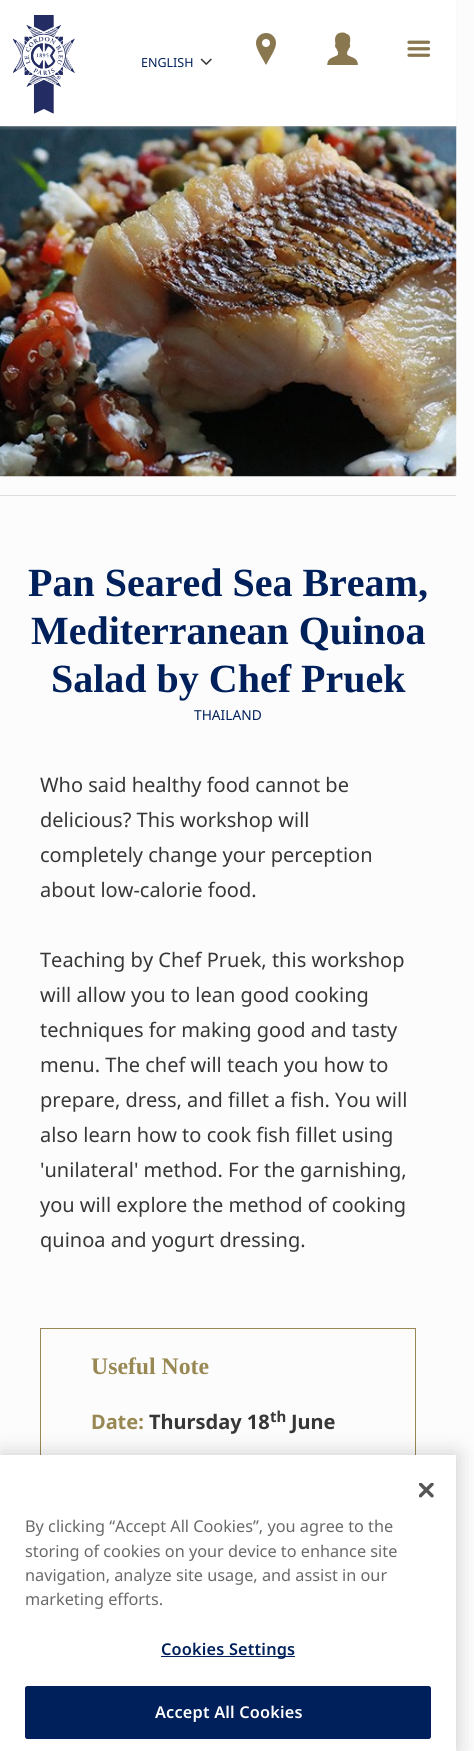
#include <cairo.h>
#include <math.h>
#include <stddef.h>

static cairo_t *c;
static void C(unsigned color){cairo_set_source_rgb(c, (color >> 16) / 255.0, (color >> 8 & 255) / 255.0, (color & 255) / 255.0);}
static void F(const char *family, double size, int italic, int bold){cairo_select_font_face(c, family, italic ? CAIRO_FONT_SLANT_ITALIC : CAIRO_FONT_SLANT_NORMAL,bold ? CAIRO_FONT_WEIGHT_BOLD : CAIRO_FONT_WEIGHT_NORMAL);cairo_set_font_size(c, size);}
static void T(double x, double y, const char *s){cairo_move_to(c, x, y);cairo_show_text(c, s);}
static void L(double x, double y, const char *s, double letter, double word){cairo_move_to(c, x, y);while (*s) {char ch[5] = {0};int n = 0;do ch[n++] = *s++; while ((*s & 0xC0) == 0x80);cairo_show_text(c, ch);cairo_rel_move_to(c, letter + word * (*ch == ' '), 0);}}
static void R(double x, double y, double w, double h){cairo_rectangle(c, x, y, w, h);cairo_fill(c);}
static void Q(double x, double y, double w, double h, double r){cairo_new_sub_path(c);cairo_arc(c, x + w - r, y + h - r, r, 0, M_PI / 2);cairo_arc(c, x + r, y + h - r, r, M_PI / 2, M_PI);cairo_arc(c, x + r, y + r, r, M_PI, 1.5 * M_PI);cairo_arc(c, x + w - r, y + r, r, 1.5 * M_PI, 2 * M_PI);cairo_close_path(c);}
static void S(double x, double y, double w, double h, double r, double blur, double alpha){cairo_push_group_with_content(c, CAIRO_CONTENT_ALPHA);cairo_set_operator(c, CAIRO_OPERATOR_SOURCE);for (int i = 15; i >= -15 && fmin(w, h) + blur * i / 3 > 0; i -= 2) {double e = blur * i / 6;cairo_set_source_rgba(c, 0, 0, 0, alpha * erfc((i - 1) / 8.5) / 2);Q(x - e, y - e, w + 2 * e, h + 2 * e, fmax(0, fmin(r + e + blur * .6, fmin(w, h) / 2 + e)));cairo_fill(c);}cairo_pattern_t *soft = cairo_pop_group(c);cairo_mask(c, soft);cairo_pattern_destroy(soft);}
static void I(const char *path, double x, double y, double w, double h){cairo_surface_t *image = cairo_image_surface_create_from_png(path);cairo_save(c);cairo_set_source_surface(c, image, x, y);cairo_rectangle(c, x, y, w, h);cairo_fill(c);cairo_restore(c);cairo_surface_destroy(image);}
int main(void) {
cairo_surface_t *surface = cairo_image_surface_create(CAIRO_FORMAT_RGB24, 474, 1751);
c = cairo_create(surface);
cairo_font_options_t *options = cairo_font_options_create();
cairo_font_options_set_hint_metrics(options, CAIRO_HINT_METRICS_OFF);
cairo_font_options_set_hint_style(options, CAIRO_HINT_STYLE_NONE);
cairo_set_font_options(c, options);
cairo_set_miter_limit(c, 4);
C(0xfcfcfc);
cairo_paint(c);
I("5.png",0,126,457,351);
C(0xcccccc);
S(0,3,456,126,0,1,.2);
C(0xffffff);
R(0,0,456,126);
I("1.png",13,15,62,99);
F("Noto Sans",12.5,0,0);
C(0x00205b);
T(141,67,"ENGLISH");
I("2.png",200,58,12,7);
F("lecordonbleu",32,0,0);
C(0x88774f);
T(250,65,":");
I("3.png",327,32,31,33);
I("4.png",407,40,24,17);
C(0xdcdcdc);
R(0,495,456,1);
F("Liberation Serif",40,0,1);
C(0x00205b);
T(28,596,"Pan Seared Sea Bream,");
T(31,644,"Mediterranean Quinoa");
T(51,692,"Salad by Chef Pruek");
F("Noto Sans",13.75,0,0);
T(194,720,"THAILAND");
F("Noto Sans",20,0,0);
C(0x373737);
T(40,792,"Who said healthy food cannot be");
T(40,827,"delicious? This workshop will");
T(40,862,"completely change your perception");
T(40,897,"about low-calorie food.");
T(40,967,"Teaching by Chef Pruek, this workshop");
T(40,1002,"will allow you to lean good cooking");
T(40,1037,"techniques for making good and tasty");
T(40,1072,"menu. The chef will teach you how to");
T(40,1107,"prepare, dress, and fillet a fish. You will");
T(40,1142,"also learn how to cook fish fillet using");
T(40,1177,"'unilateral' method. For the garnishing,");
T(40,1212,"you will explore the method of cooking");
T(40,1247,"quinoa and yogurt dressing.");
cairo_rectangle(c,40.5,1328.5,375,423);
C(0x988854);
cairo_set_line_width(c,1);
cairo_stroke(c);
F("Liberation Serif",23.75,0,1);
T(91,1374,"Useful Note");
F("Noto Sans",20,0,1);
T(91,1429,"Date:");
C(0x373737);
T(149,1429,"Thursday 18");
F("Noto Sans",15,0,1);
T(270,1422,"th");
F("Noto Sans",20,0,1);
T(291,1429,"June");
C(0x000000);
S(0,1455,456,296,0,11,.2);
C(0xffffff);
R(0,1455,456,296);
I("6.png",419,1483,15,15);
F("Noto Sans",16.25,0,0);
C(0x696969);
T(25,1532,"By clicking “Accept All Cookies”, you agree to the");
T(25,1557,"storing of cookies on your device to enhance site");
T(25,1581,"navigation, analyze site usage, and assist in our");
T(25,1605,"marketing efforts.");
C(0x00205b);
R(161,1656,134,1);
F("Noto Sans SemiBold",16.25,0,0);
L(161,1655,"Cookies Settings",.2,0);
Q(25.5,1686.5,405,52,2);
cairo_fill_preserve(c);
cairo_stroke(c);
C(0xffffff);
L(155,1718,"Accept All Cookies",.2,0);
cairo_surface_write_to_png(surface, "o.png");
cairo_font_options_destroy(options);
cairo_destroy(c);
cairo_surface_destroy(surface);
return 0;
}
